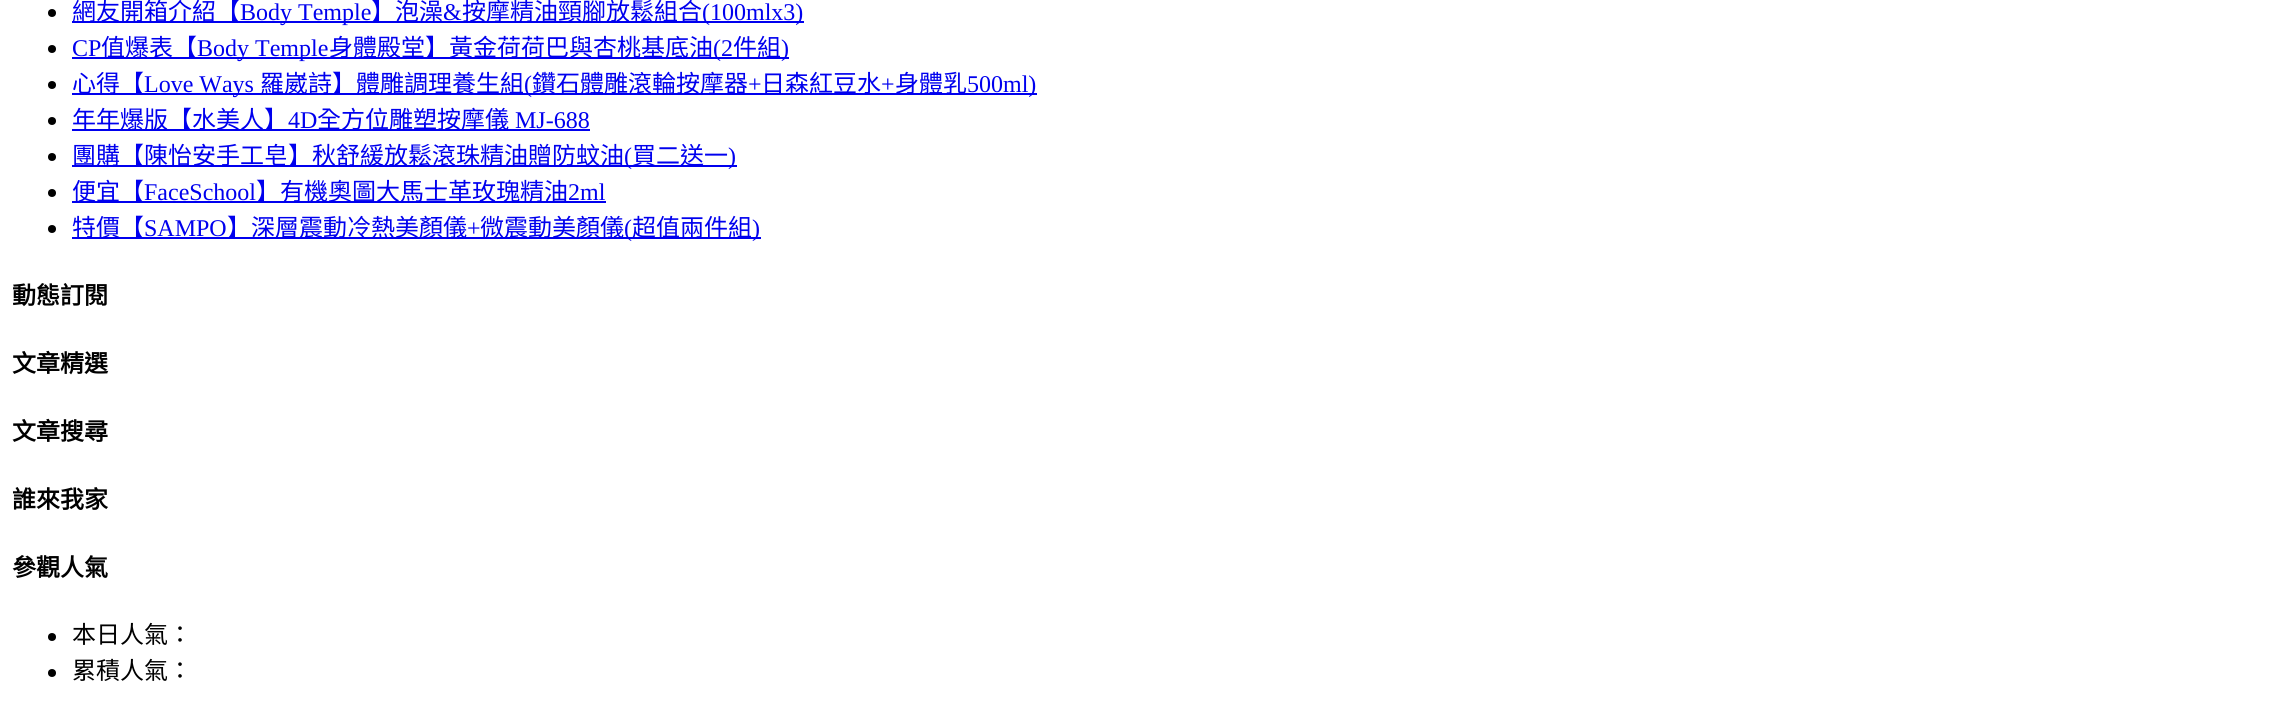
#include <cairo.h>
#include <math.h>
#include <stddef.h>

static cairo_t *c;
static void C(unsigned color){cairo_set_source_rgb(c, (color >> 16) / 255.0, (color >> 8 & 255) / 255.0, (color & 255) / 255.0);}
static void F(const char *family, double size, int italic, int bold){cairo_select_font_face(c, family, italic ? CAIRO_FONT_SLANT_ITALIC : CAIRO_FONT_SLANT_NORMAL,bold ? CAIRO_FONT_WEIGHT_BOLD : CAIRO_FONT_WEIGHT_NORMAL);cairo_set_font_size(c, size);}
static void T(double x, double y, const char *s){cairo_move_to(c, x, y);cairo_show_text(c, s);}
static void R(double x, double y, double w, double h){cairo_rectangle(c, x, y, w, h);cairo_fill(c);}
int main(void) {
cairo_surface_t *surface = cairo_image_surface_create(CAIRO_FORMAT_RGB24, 2285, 710);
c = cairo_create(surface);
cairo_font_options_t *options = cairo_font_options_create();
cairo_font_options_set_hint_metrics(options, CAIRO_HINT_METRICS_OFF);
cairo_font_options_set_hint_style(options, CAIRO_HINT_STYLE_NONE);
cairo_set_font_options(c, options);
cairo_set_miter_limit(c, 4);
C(0xffffff);
cairo_paint(c);
C(0x000000);
cairo_arc(c,52,13,4,0,2 * M_PI);
cairo_fill(c);
C(0x0000ee);
R(72,21,732,2);
F("Noto Sans CJK TC",24,0,0);
T(72,20,"網友開箱介紹【");
F("Liberation Serif",24,0,0);
T(240,20,"Body Temple");
F("Noto Sans CJK TC",24,0,0);
T(371,20,"】泡澡");
F("Liberation Serif",24,0,0);
T(443,20,"&");
F("Noto Sans CJK TC",24,0,0);
T(462,20,"按摩精油頸腳放鬆組合");
F("Liberation Serif",24,0,0);
T(702,20,"(100mlx3)");
C(0x000000);
cairo_new_path(c);
cairo_arc(c,52,49,4,0,2 * M_PI);
cairo_fill(c);
C(0x0000ee);
T(72,56,"CP");
R(72,57,717,2);
F("Noto Sans CJK TC",24,0,0);
T(101,56,"值爆表【");
F("Liberation Serif",24,0,0);
T(197,56,"Body Temple");
F("Noto Sans CJK TC",24,0,0);
T(329,56,"身體殿堂】黃金荷荷巴與杏桃基底油");
F("Liberation Serif",24,0,0);
T(713,56,"(2");
F("Noto Sans CJK TC",24,0,0);
T(733,56,"件組");
F("Liberation Serif",24,0,0);
T(781,56,")");
C(0x000000);
cairo_new_path(c);
cairo_arc(c,52,85,4,0,2 * M_PI);
cairo_fill(c);
C(0x0000ee);
R(72,93,965,2);
F("Noto Sans CJK TC",24,0,0);
T(72,92,"心得【");
F("Liberation Serif",24,0,0);
T(144,92,"Love Ways");
F("Noto Sans CJK TC",24,0,0);
T(260,92,"羅崴詩】體雕調理養生組");
F("Liberation Serif",24,0,0);
T(524,92,"(");
F("Noto Sans CJK TC",24,0,0);
T(532,92,"鑽石體雕滾輪按摩器");
F("Liberation Serif",24,0,0);
T(748,92,"+");
F("Noto Sans CJK TC",24,0,0);
T(761,92,"日森紅豆水");
F("Liberation Serif",24,0,0);
T(881,92,"+");
F("Noto Sans CJK TC",24,0,0);
T(895,92,"身體乳");
F("Liberation Serif",24,0,0);
T(967,92,"500ml)");
C(0x000000);
cairo_new_path(c);
cairo_arc(c,52,121,4,0,2 * M_PI);
cairo_fill(c);
C(0x0000ee);
R(72,129,518,2);
F("Noto Sans CJK TC",24,0,0);
T(72,128,"年年爆版【水美人】");
F("Liberation Serif",24,0,0);
T(288,128,"4D");
F("Noto Sans CJK TC",24,0,0);
T(317,128,"全方位雕塑按摩儀");
F("Liberation Serif",24,0,0);
T(515,128,"MJ-688");
C(0x000000);
cairo_new_path(c);
cairo_arc(c,52,157,4,0,2 * M_PI);
cairo_fill(c);
C(0x0000ee);
R(72,165,665,2);
F("Noto Sans CJK TC",24,0,0);
T(72,164,"團購【陳怡安手工皂】秋舒緩放鬆滾珠精油贈防蚊油");
F("Liberation Serif",24,0,0);
T(624,164,"(");
F("Noto Sans CJK TC",24,0,0);
T(632,164,"買二送一");
F("Liberation Serif",24,0,0);
T(728,164,")");
C(0x000000);
cairo_new_path(c);
cairo_arc(c,52,193,4,0,2 * M_PI);
cairo_fill(c);
C(0x0000ee);
R(72,201,534,2);
F("Noto Sans CJK TC",24,0,0);
T(72,200,"便宜【");
F("Liberation Serif",24,0,0);
T(144,200,"FaceSchool");
F("Noto Sans CJK TC",24,0,0);
T(256,200,"】有機奧圖大馬士革玫瑰精油");
F("Liberation Serif",24,0,0);
T(568,200,"2ml");
C(0x000000);
cairo_new_path(c);
cairo_arc(c,52,229,4,0,2 * M_PI);
cairo_fill(c);
C(0x0000ee);
R(72,237,689,2);
F("Noto Sans CJK TC",24,0,0);
T(72,236,"特價【");
F("Liberation Serif",24,0,0);
T(144,236,"SAMPO");
F("Noto Sans CJK TC",24,0,0);
T(227,236,"】深層震動冷熱美顏儀");
F("Liberation Serif",24,0,0);
T(467,236,"+");
F("Noto Sans CJK TC",24,0,0);
T(480,236,"微震動美顏儀");
F("Liberation Serif",24,0,0);
T(624,236,"(");
F("Noto Sans CJK TC",24,0,0);
T(632,236,"超值兩件組");
F("Liberation Serif",24,0,0);
T(752,236,")");
F("Noto Sans CJK TC",24,0,1);
C(0x000000);
T(12,304,"動態訂閱");
T(12,372,"文章精選");
T(12,440,"文章搜尋");
T(12,508,"誰來我家");
T(12,576,"參觀人氣");
cairo_new_path(c);
cairo_arc(c,52,637,4,0,2 * M_PI);
cairo_fill(c);
F("Noto Sans CJK TC",24,0,0);
T(72,643,"本日人氣：");
cairo_new_path(c);
cairo_arc(c,52,673,4,0,2 * M_PI);
cairo_fill(c);
T(72,679,"累積人氣：");
cairo_surface_write_to_png(surface, "o.png");
cairo_font_options_destroy(options);
cairo_destroy(c);
cairo_surface_destroy(surface);
return 0;
}
